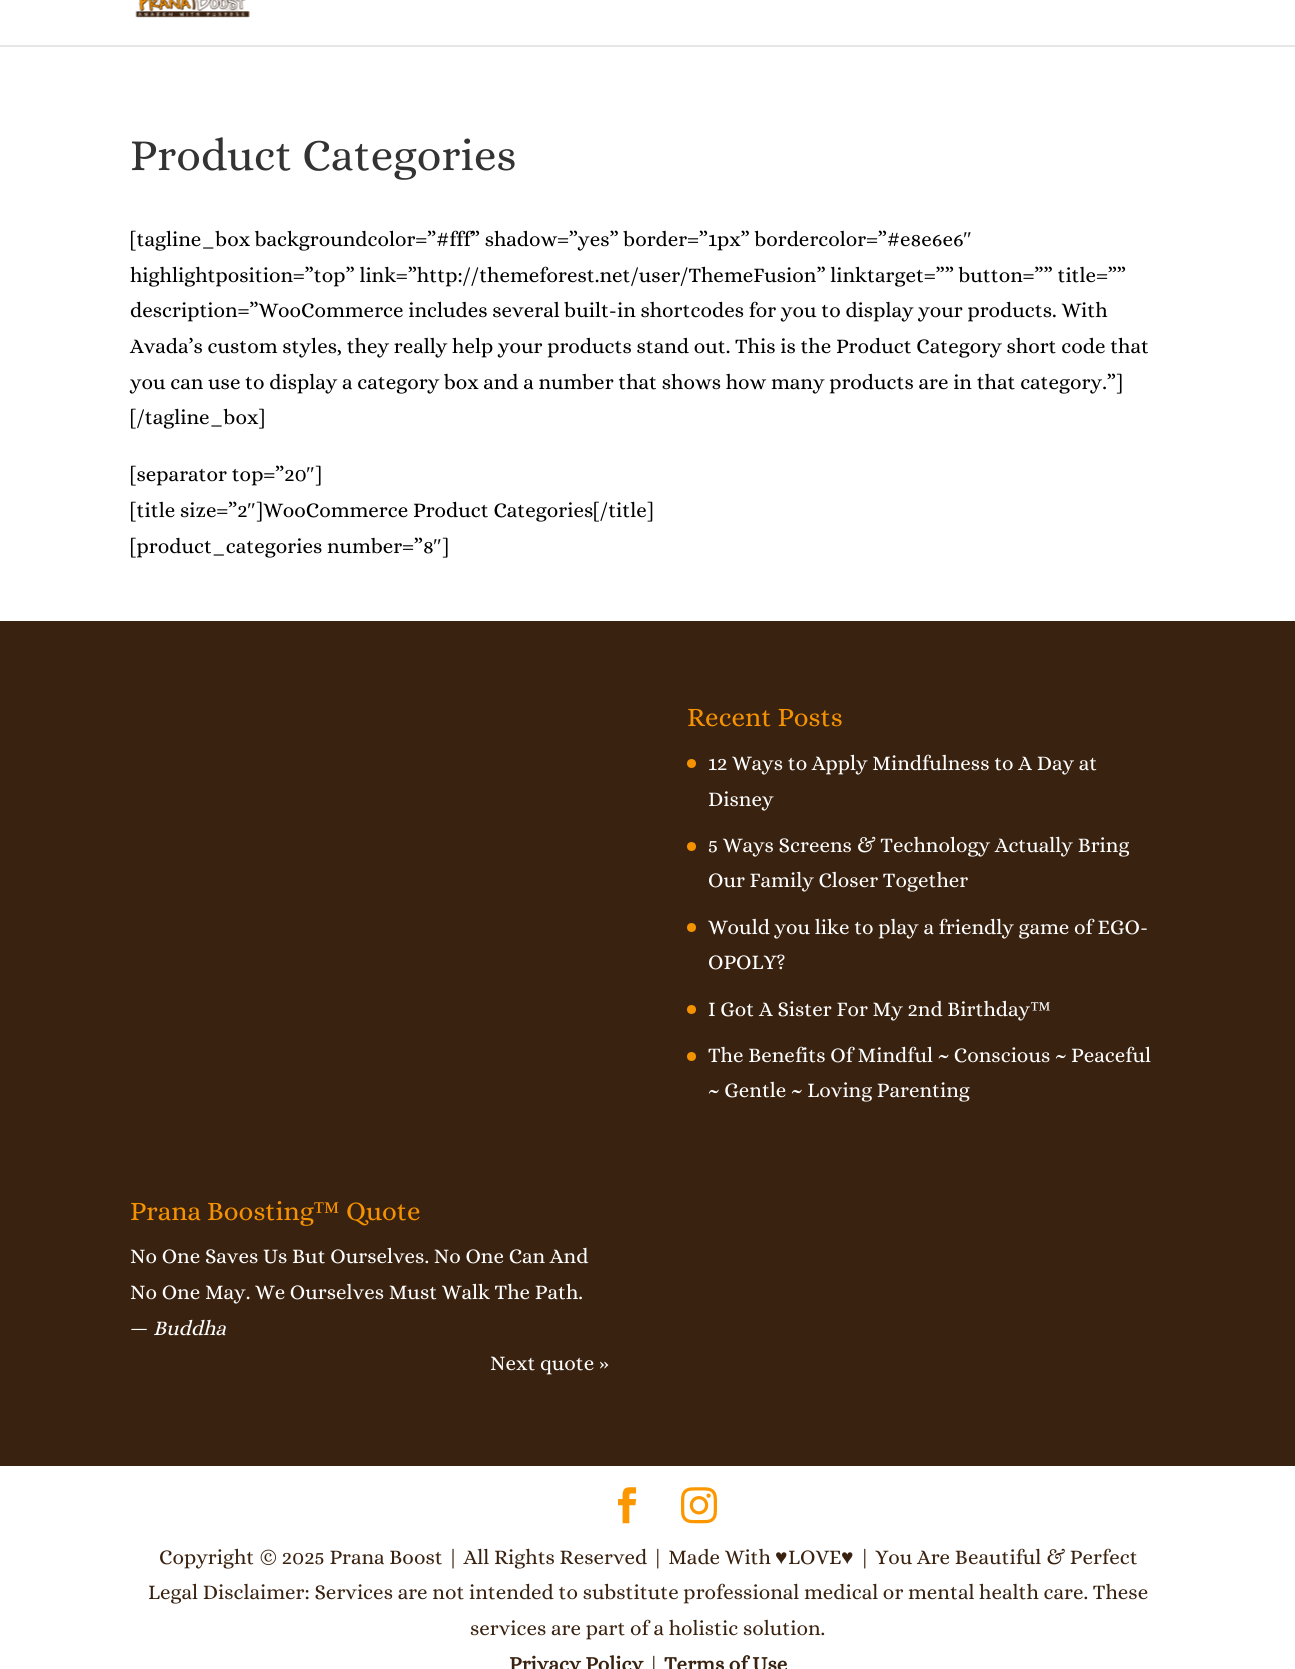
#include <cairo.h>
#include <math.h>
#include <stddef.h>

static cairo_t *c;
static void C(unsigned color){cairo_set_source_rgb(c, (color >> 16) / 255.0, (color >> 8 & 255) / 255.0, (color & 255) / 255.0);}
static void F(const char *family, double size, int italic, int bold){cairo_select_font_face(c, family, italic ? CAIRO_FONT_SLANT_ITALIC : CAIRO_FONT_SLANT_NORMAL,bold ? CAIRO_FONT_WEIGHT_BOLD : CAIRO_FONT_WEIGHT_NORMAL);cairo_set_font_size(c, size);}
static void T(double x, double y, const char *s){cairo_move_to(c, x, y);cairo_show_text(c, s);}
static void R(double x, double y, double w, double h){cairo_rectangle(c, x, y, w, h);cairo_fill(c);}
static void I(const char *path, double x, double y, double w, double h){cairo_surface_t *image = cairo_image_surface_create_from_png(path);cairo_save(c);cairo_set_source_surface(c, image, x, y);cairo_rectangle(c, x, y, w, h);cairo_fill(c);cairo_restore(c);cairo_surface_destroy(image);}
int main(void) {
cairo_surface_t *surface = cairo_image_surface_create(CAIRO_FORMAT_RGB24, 1295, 1669);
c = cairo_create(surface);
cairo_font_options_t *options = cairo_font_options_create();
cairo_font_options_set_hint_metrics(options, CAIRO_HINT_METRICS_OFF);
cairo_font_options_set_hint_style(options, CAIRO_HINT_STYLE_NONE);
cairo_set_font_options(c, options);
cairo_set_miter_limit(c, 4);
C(0xffffff);
cairo_paint(c);
C(0xe6e6e6);
R(0,45,1295,2);
I("1.png",135,0,115,18);
F("Alice",45,0,0);
C(0x333333);
T(130,170,"Product Categories");
F("Alice",21,0,0);
C(0x000000);
T(130,246,"[tagline_box backgroundcolor=”#fff” shadow=”yes” border=”1px” bordercolor=”#e8e6e6");
F("Liberation Serif",21,0,0);
T(963,246,"″");
F("Alice",21,0,0);
T(130,282,"highlightposition=”top” link=”http://themeforest.net/user/ThemeFusion” linktarget=”” button=”” title=””");
T(130,317,"description=”WooCommerce includes several built-in shortcodes for you to display your products. With");
T(130,353,"Avada’s custom styles, they really help your products stand out. This is the Product Category short code that");
T(130,389,"you can use to display a category box and a number that shows how many products are in that category.”]");
T(130,424,"[/tagline_box]");
T(130,481,"[separator top=”20");
F("Liberation Serif",21,0,0);
T(306,481,"″");
F("Alice",21,0,0);
T(315,481,"]");
T(130,517,"[title size=”2");
F("Liberation Serif",21,0,0);
T(247,517,"″");
F("Alice",21,0,0);
T(256,517,"]WooCommerce Product Categories[/title]");
T(130,553,"[product_categories number=”8");
F("Liberation Serif",21,0,0);
T(433,553,"″");
F("Alice",21,0,0);
T(442,553,"]");
C(0x3a2210);
R(0,621,1295,845);
F("Alice",27,0,0);
C(0xf59202);
T(687,726,"Recent Posts");
cairo_new_path(c);
cairo_arc(c,691.5,763.5,4.5,0,2 * M_PI);
cairo_fill(c);
F("Alice",21,0,0);
C(0xffffff);
T(708,770,"12 Ways to Apply Mindfulness to A Day at");
T(708,806,"Disney");
C(0xf59202);
cairo_new_path(c);
cairo_arc(c,691.5,846.5,4.5,0,2 * M_PI);
cairo_fill(c);
C(0xffffff);
T(708,852,"5 Ways Screens & Technology Actually Bring");
T(708,887,"Our Family Closer Together");
C(0xf59202);
cairo_new_path(c);
cairo_arc(c,691.5,927.5,4.5,0,2 * M_PI);
cairo_fill(c);
C(0xffffff);
T(708,934,"Would you like to play a friendly game of EGO-");
T(708,969,"OPOLY?");
C(0xf59202);
cairo_new_path(c);
cairo_arc(c,691.5,1009.5,4.5,0,2 * M_PI);
cairo_fill(c);
C(0xffffff);
T(708,1016,"I Got A Sister For My 2nd Birthday");
F("Liberation Serif",21,0,0);
T(1030,1016,"™");
C(0xf59202);
cairo_new_path(c);
cairo_arc(c,691.5,1056.5,4.5,0,2 * M_PI);
cairo_fill(c);
F("Alice",21,0,0);
C(0xffffff);
T(708,1062,"The Benefits Of Mindful ~ Conscious ~ Peaceful");
T(708,1097,"~ Gentle ~ Loving Parenting");
F("Alice",27,0,0);
C(0xf59202);
T(130,1220,"Prana Boosting");
F("Liberation Serif",27,0,0);
T(313,1220,"™");
F("Alice",27,0,0);
T(346,1220,"Quote");
F("Alice",21,0,0);
C(0xffffff);
T(130,1263,"No One Saves Us But Ourselves. No One Can And");
T(130,1299,"No One May. We Ourselves Must Walk The Path.");
T(130,1335,"—");
F("Alice",21,1,0);
T(153,1335,"Buddha");
F("Alice",21,0,0);
T(490,1370,"Next quote »");
I("2.png",618,1487,19,37);
I("3.png",681,1487,36,37);
C(0x3a2210);
T(159,1564,"Copyright © 2025 Prana Boost | All Rights Reserved | Made With");
F("Liberation Serif",21,0,0);
T(775,1564,"♥");
F("Alice",21,0,0);
T(788,1564,"LOVE");
F("Liberation Serif",21,0,0);
T(841,1564,"♥");
F("Alice",21,0,0);
T(859,1564,"| You Are Beautiful & Perfect");
T(148,1599,"Legal Disclaimer: Services are not intended to substitute professional medical or mental health care. These");
T(470,1635,"services are part of a holistic solution.");
F("Alice",21,0,1);
T(509,1671,"Privacy Policy");
F("Alice",21,0,0);
T(648,1671,"|");
F("Alice",21,0,1);
T(664,1671,"Terms of Use");
cairo_surface_write_to_png(surface, "o.png");
cairo_font_options_destroy(options);
cairo_destroy(c);
cairo_surface_destroy(surface);
return 0;
}
